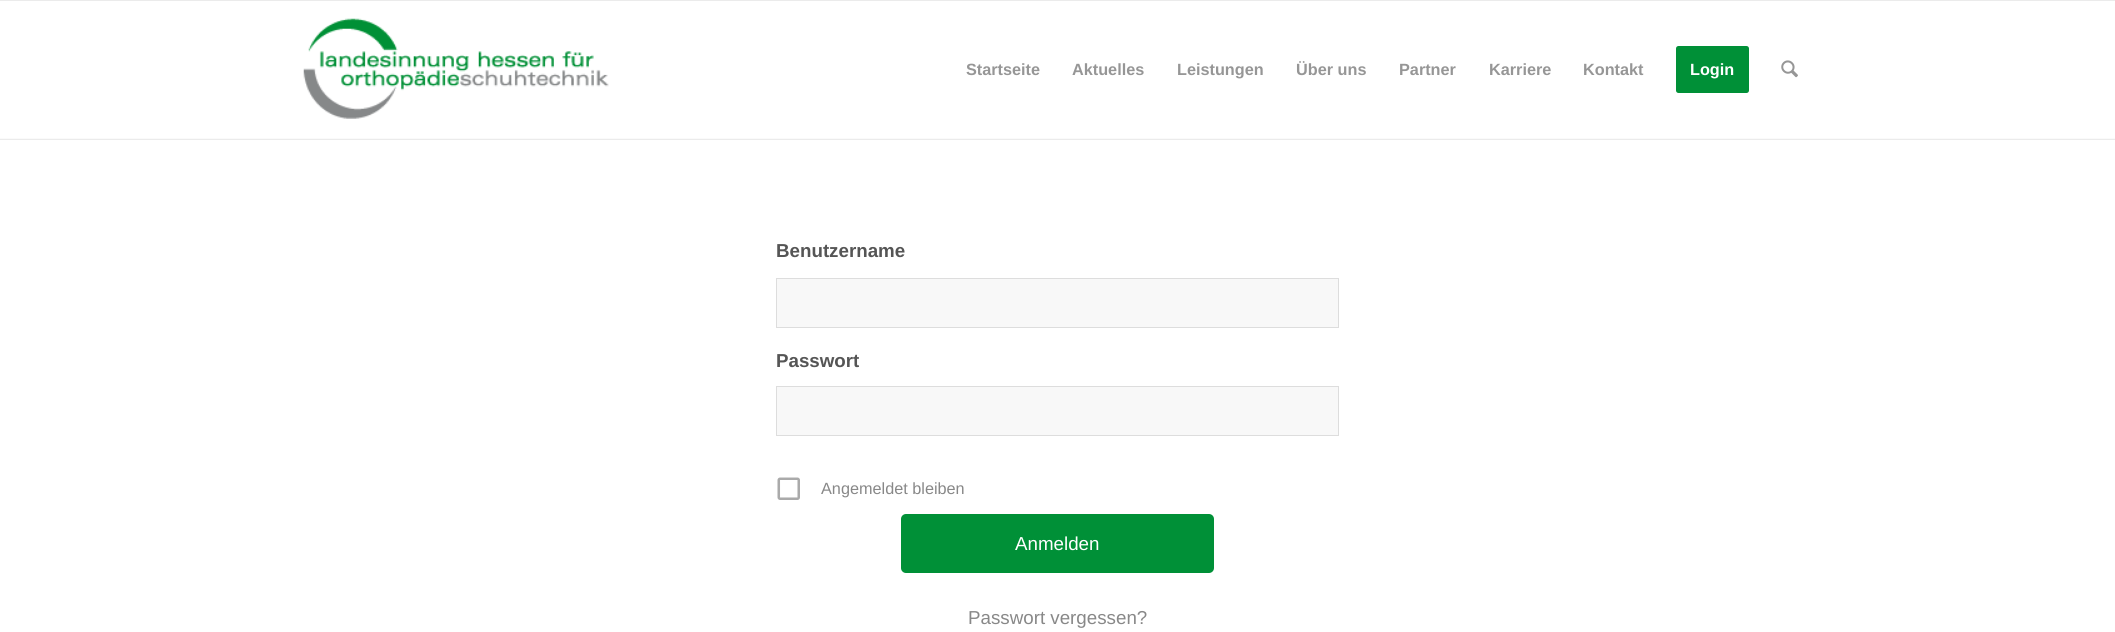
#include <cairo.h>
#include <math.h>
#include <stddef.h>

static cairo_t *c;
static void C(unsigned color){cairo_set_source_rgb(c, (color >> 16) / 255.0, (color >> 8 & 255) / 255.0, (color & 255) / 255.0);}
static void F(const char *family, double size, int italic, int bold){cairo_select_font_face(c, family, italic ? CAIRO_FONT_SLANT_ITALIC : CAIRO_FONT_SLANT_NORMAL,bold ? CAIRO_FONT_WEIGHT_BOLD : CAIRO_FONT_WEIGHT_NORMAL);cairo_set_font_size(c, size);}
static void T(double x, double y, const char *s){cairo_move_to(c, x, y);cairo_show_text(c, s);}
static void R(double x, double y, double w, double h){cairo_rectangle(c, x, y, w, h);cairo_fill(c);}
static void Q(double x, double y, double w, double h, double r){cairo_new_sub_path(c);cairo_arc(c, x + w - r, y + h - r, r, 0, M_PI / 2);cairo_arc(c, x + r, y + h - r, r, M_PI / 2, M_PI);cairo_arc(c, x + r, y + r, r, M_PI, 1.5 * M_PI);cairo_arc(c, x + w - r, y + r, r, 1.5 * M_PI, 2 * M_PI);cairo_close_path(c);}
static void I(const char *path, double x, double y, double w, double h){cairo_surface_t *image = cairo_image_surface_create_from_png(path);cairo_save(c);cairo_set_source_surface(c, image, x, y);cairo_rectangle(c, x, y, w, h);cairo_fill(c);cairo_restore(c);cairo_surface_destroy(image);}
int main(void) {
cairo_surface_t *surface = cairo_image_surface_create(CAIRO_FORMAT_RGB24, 2115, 632);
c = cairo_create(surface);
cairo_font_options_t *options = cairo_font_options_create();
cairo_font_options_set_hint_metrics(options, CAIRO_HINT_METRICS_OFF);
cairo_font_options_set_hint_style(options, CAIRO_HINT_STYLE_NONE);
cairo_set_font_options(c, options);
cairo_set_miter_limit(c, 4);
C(0xffffff);
cairo_paint(c);
C(0xebebeb);
R(0,0,2115,1);
R(0,139,2115,1);
I("1.png",303,18,306,101);
F("Liberation Sans",16.25,0,1);
C(0x969696);
T(966,75,"Startseite");
T(1072,75,"Aktuelles");
T(1177,75,"Leistungen");
T(1296,75,"Über uns");
T(1399,75,"Partner");
T(1489,75,"Karriere");
T(1583,75,"Kontakt");
C(0x009037);
Q(1677.5,47.5,70,44,1);
cairo_fill_preserve(c);
cairo_set_line_width(c,3);
cairo_stroke(c);
C(0xffffff);
T(1690,75,"Login");
I("2.png",1781,60,17,18);
C(0xfafafa);
R(0,138,2115,1);
F("Liberation Sans",18.75,0,1);
C(0x555555);
T(776,257,"Benutzername");
C(0xf8f8f8);
cairo_rectangle(c,776.5,278.5,562,49);
cairo_fill_preserve(c);
C(0xdddddd);
cairo_set_line_width(c,1);
cairo_stroke(c);
C(0x555555);
T(776,367,"Passwort");
C(0xf8f8f8);
cairo_rectangle(c,776.5,386.5,562,49);
cairo_fill_preserve(c);
C(0xdddddd);
cairo_stroke(c);
I("3.png",777,477,23,23);
F("Liberation Sans",16.25,0,0);
C(0x888888);
T(821,494,"Angemeldet bleiben");
C(0x009037);
Q(901,514,313,59,5);
cairo_fill(c);
F("Liberation Sans",18.75,0,0);
C(0xffffff);
T(1015,550,"Anmelden");
C(0x888888);
T(968,624,"Passwort vergessen?");
cairo_surface_write_to_png(surface, "o.png");
cairo_font_options_destroy(options);
cairo_destroy(c);
cairo_surface_destroy(surface);
return 0;
}
